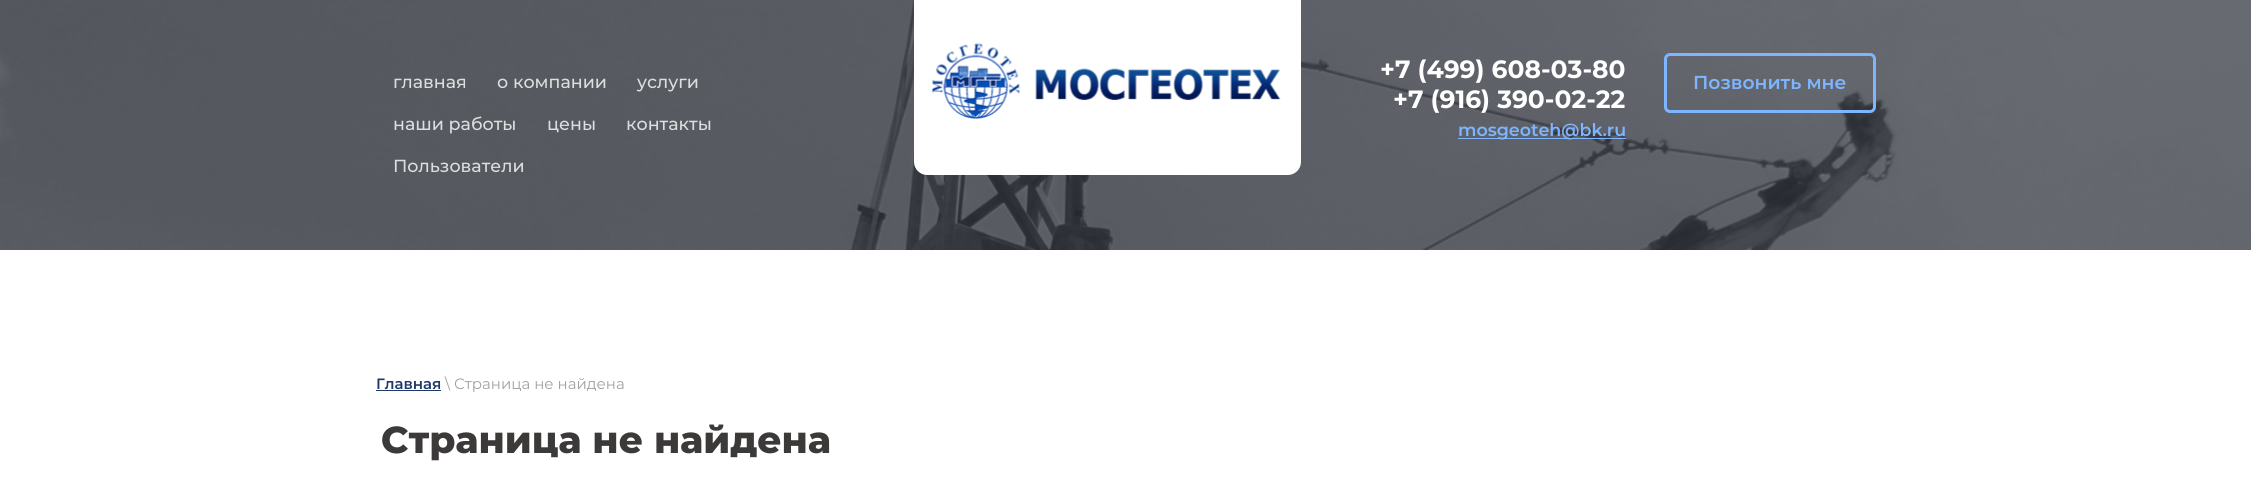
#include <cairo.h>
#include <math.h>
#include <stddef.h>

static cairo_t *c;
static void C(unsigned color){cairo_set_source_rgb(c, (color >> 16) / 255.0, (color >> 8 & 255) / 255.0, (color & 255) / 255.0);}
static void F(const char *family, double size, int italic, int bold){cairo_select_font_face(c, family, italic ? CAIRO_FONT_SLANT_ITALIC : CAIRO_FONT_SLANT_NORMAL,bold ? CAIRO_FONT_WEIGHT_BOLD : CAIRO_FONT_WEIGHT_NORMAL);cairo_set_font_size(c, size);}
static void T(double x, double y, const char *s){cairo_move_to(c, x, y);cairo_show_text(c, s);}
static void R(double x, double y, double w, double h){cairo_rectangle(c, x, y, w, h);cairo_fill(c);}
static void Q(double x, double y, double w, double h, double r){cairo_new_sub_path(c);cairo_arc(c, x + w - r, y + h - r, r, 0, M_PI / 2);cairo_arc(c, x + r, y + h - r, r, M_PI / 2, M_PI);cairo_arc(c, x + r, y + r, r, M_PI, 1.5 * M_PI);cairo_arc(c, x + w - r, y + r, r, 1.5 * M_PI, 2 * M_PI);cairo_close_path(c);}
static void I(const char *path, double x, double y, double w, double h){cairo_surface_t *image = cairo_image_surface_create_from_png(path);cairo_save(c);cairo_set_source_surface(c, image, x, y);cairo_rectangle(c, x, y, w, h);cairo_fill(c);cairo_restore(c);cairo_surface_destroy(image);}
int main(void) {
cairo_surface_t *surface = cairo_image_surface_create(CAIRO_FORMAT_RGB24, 2251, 495);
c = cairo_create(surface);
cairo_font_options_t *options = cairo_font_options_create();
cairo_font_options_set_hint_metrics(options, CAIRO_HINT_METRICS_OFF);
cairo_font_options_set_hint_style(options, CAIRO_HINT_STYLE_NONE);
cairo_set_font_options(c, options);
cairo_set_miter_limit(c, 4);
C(0xffffff);
cairo_paint(c);
I("1.png",0,0,2251,250);
F("Montserrat Medium",17.5,0,0);
C(0xdddedf);
T(393,88,"главная");
T(497,88,"о компании");
T(637,88,"услуги");
T(393,130,"наши работы");
T(547,130,"цены");
T(626,130,"контакты");
T(393,172,"Пользователи");
C(0xffffff);
cairo_new_path(c);
cairo_move_to(c,914,0);
cairo_line_to(c,1301,0);
cairo_line_to(c,1301,162);
cairo_curve_to(c,1301,169,1295,175,1288,175);
cairo_line_to(c,927,175);
cairo_curve_to(c,920,175,914,169,914,162);
cairo_close_path(c);
cairo_fill(c);
I("2.png",932,43,349,76);
F("Montserrat",25,0,1);
T(1380,78,"+7 (499) 608-03-80");
T(1393,108,"+7 (916) 390-02-22");
C(0x7db5ff);
R(1458,138,168,1);
F("Montserrat SemiBold",17.5,0,0);
T(1458,136,"mosgeoteh@bk.ru");
Q(1665.5,54.5,209,57,4.5);
cairo_set_line_width(c,3);
cairo_stroke(c);
F("Montserrat SemiBold",18.75,0,0);
T(1693,89,"Позвонить мне");
F("Montserrat SemiBold",15,0,0);
C(0x1e386b);
T(376,389,"Главная");
R(376,390,65,1);
F("Montserrat",15,0,0);
C(0xa1a1a1);
T(445,389,"\\ Страница не найдена");
F("Montserrat ExtraBold",37.5,0,0);
C(0x3c3939);
T(381,453,"Страница не найдена");
cairo_surface_write_to_png(surface, "o.png");
cairo_font_options_destroy(options);
cairo_destroy(c);
cairo_surface_destroy(surface);
return 0;
}
